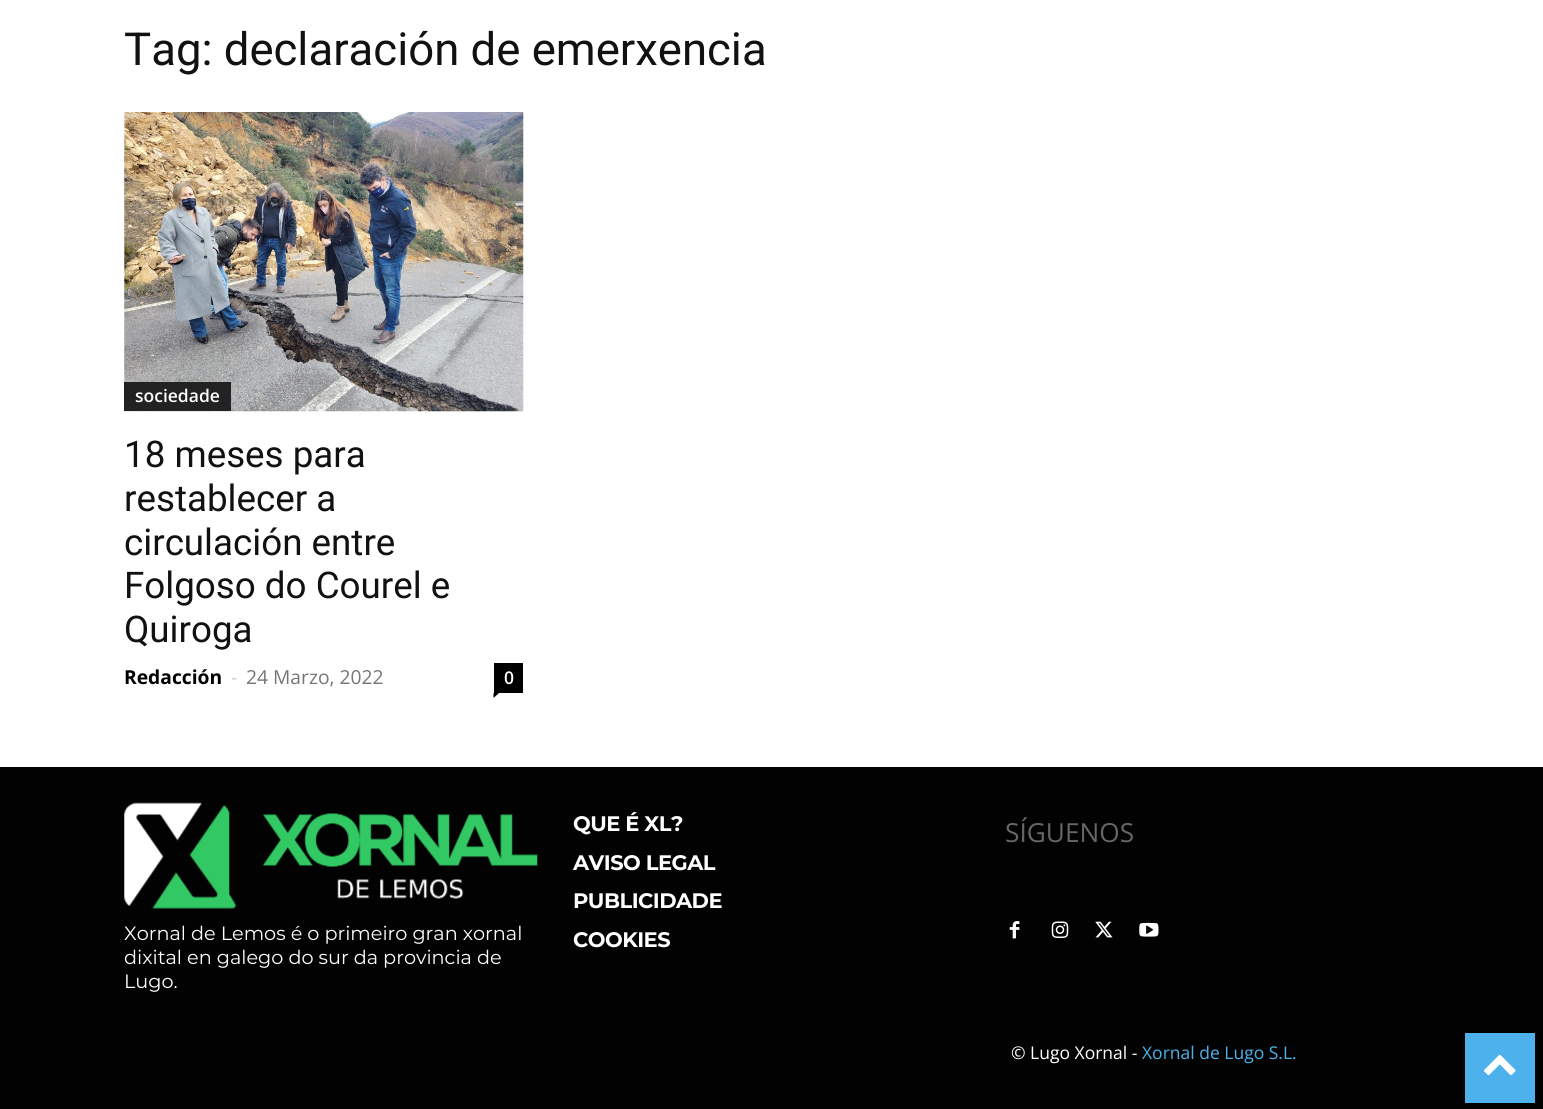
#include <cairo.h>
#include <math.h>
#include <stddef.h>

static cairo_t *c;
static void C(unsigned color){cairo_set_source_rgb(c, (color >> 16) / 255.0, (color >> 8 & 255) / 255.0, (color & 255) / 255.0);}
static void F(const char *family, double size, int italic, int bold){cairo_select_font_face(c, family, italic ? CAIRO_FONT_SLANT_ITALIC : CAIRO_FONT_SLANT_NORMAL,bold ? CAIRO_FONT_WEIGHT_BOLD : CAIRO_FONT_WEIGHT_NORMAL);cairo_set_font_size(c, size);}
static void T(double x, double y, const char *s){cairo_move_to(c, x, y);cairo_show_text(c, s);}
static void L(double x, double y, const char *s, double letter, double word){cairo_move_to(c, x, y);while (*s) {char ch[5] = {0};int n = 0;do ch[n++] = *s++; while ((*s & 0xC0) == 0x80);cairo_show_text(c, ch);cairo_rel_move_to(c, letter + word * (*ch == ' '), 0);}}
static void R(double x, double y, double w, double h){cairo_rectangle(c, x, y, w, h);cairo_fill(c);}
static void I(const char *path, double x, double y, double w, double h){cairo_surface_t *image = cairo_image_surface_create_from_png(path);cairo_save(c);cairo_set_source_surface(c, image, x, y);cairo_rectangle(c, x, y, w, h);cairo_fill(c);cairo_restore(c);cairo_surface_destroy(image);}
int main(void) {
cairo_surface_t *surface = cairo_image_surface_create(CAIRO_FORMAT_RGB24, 1543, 1109);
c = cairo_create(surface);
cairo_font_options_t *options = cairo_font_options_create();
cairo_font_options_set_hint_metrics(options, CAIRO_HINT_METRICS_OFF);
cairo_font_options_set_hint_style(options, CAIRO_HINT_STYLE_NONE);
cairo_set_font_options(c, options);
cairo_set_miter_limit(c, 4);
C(0xffffff);
cairo_paint(c);
F("Roboto",45.5,0,0);
C(0x111111);
T(124,65,"Tag: declaración de emerxencia");
I("1.png",124,112,400,300);
C(0x222222);
R(124,382,107,29);
F("Open Sans SemiBold",17.5,0,0);
C(0xffffff);
T(135,402,"sociedade");
F("Roboto",36.75,0,0);
C(0x111111);
T(124,467,"18 meses para");
T(124,511,"restablecer a");
T(124,555,"circulación entre");
T(124,598,"Folgoso do Courel e");
T(124,642,"Quiroga");
F("Open Sans",19.25,0,1);
C(0x000000);
T(124,684,"Redacción");
F("Open Sans",19.25,0,0);
C(0xcccccc);
T(231,684,"-");
C(0x767676);
T(246,684,"24 Marzo, 2022");
C(0x000000);
R(494,663,29,30);
F("Open Sans SemiBold",17.5,0,0);
C(0xffffff);
T(504,684,"0");
C(0x000000);
cairo_new_path(c);
cairo_move_to(c,493.5,693);
cairo_line_to(c,499,693);
cairo_line_to(c,493.5,698);
cairo_close_path(c);
cairo_fill(c);
C(0x020202);
R(0,767,1543,342);
F("Montserrat",21,0,1);
C(0xffffff);
L(573,831,"QUE É XL?",-.5,0);
L(573,870,"AVISO LEGAL",-.5,0);
L(573,908,"PUBLICIDADE",-.5,0);
L(573,947,"COOKIES",-.5,0);
F("Open Sans",26.25,0,0);
C(0x666666);
T(1005,842,"SÍGUENOS");
I("2.png",1009,921,11,18);
I("3.png",1051,921,18,17);
I("4.png",1095,921,18,17);
I("5.png",1139,922,20,15);
I("6.png",124,802,414,107);
F("Montserrat",19.25,0,0);
C(0xffffff);
T(124,940,"Xornal de Lemos é o primeiro gran xornal");
T(124,964,"dixital en galego do sur da provincia de");
T(124,988,"Lugo.");
F("Open Sans",17.5,0,0);
T(1011,1059,"© Lugo Xornal -");
C(0x4db2ec);
T(1142,1059,"Xornal de Lugo S.L.");
R(1465,1033,70,70);
I("7.png",1484,1054,32,21);
cairo_surface_write_to_png(surface, "o.png");
cairo_font_options_destroy(options);
cairo_destroy(c);
cairo_surface_destroy(surface);
return 0;
}
